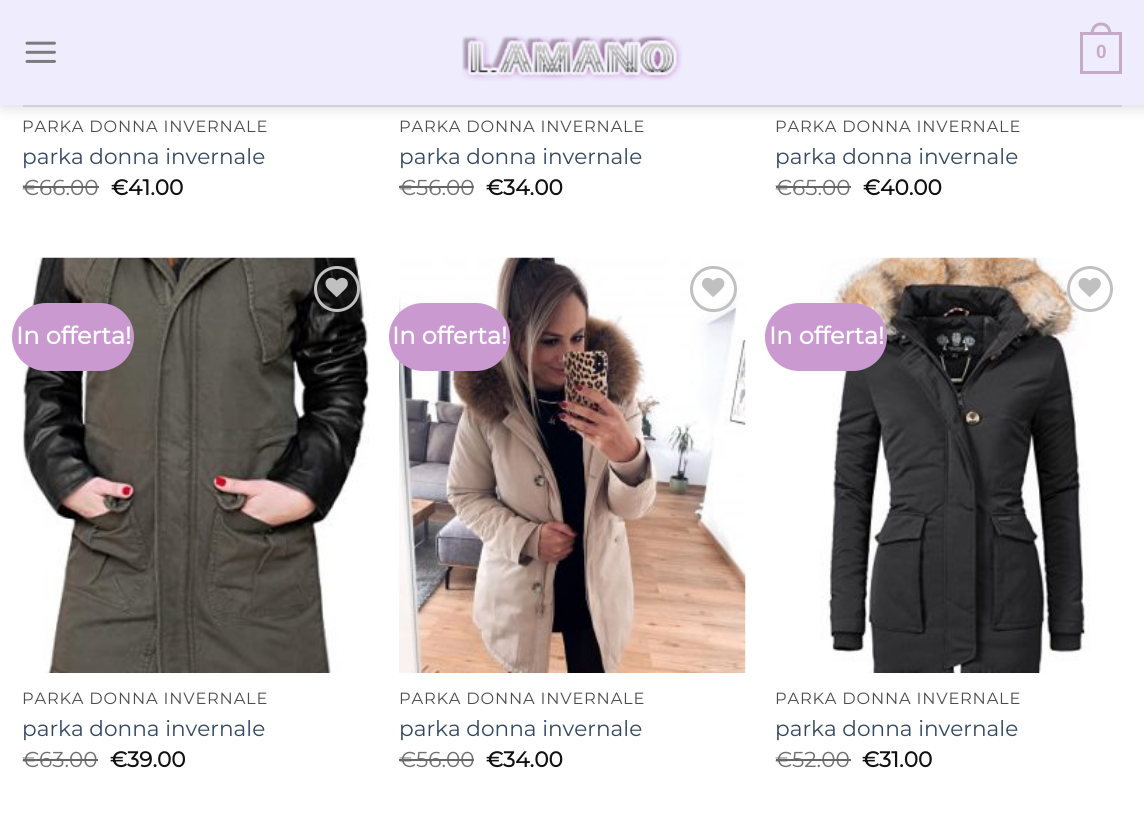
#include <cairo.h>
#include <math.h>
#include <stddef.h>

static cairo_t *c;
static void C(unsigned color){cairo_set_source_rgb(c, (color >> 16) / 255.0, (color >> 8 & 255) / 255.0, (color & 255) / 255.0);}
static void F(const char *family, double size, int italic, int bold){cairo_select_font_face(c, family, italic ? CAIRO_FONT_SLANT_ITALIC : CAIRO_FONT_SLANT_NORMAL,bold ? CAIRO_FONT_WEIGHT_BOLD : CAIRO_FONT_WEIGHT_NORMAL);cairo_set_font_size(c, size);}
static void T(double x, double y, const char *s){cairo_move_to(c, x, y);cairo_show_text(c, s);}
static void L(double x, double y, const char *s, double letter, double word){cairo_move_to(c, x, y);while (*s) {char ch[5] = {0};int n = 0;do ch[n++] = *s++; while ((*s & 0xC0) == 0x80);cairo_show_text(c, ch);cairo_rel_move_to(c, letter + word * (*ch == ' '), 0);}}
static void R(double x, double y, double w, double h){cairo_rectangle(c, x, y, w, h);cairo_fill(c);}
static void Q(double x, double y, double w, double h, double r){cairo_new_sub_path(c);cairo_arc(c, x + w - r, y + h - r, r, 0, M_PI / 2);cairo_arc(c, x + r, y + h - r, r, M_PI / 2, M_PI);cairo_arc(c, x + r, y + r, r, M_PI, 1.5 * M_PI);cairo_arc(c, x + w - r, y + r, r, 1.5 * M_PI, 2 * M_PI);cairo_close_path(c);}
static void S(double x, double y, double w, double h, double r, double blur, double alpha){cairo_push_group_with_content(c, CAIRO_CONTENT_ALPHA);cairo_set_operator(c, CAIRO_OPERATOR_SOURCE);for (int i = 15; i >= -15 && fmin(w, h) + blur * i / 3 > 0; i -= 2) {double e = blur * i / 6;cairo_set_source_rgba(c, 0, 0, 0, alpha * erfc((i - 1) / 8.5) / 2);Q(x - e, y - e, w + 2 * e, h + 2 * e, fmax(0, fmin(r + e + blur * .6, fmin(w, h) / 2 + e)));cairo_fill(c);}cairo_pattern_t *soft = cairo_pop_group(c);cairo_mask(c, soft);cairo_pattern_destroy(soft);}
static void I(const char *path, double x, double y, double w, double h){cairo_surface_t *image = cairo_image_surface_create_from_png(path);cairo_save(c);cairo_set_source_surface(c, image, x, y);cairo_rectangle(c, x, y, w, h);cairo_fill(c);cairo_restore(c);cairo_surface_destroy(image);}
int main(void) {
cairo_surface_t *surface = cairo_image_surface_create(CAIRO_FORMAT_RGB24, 1144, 819);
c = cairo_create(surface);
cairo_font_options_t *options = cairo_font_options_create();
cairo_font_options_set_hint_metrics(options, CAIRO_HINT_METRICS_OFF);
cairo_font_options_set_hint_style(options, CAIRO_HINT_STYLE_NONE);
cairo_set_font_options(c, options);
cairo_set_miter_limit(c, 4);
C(0xffffff);
cairo_paint(c);
C(0x000000);
S(2,2,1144,105,0,7.5,.15);
C(0xefecfe);
R(0,0,1144,105);
I("1.png",25,41,31,22);
I("2.png",462,35,220,46);
cairo_rectangle(c,1081.5,33.5,39,39);
C(0xc5abc8);
cairo_set_line_width(c,3);
cairo_stroke(c);
cairo_set_fill_rule(c,CAIRO_FILL_RULE_EVEN_ODD);
cairo_new_path(c);
cairo_move_to(c,1101,22.5);
cairo_curve_to(c,1108,22.5,1111.5,28,1111.5,34.5);
cairo_line_to(c,1090.5,34.5);
cairo_curve_to(c,1090.5,28,1094,22.5,1101,22.5);
cairo_close_path(c);
cairo_move_to(c,1101,25.5);
cairo_curve_to(c,1106.5,25.5,1108.5,30,1108.5,34.5);
cairo_line_to(c,1093.5,34.5);
cairo_curve_to(c,1093.5,30,1095.5,25.5,1101,25.5);
cairo_close_path(c);
cairo_fill(c);
F("Liberation Sans",19,0,1);
T(1096,58,"0");
C(0xd2d2d2);
R(23,105,1099,2);
F("Montserrat Thin",16.25,0,0);
C(0x4d4d4d);
L(22,132,"PARKA DONNA INVERNALE",.8,0);
F("Montserrat Thin",21.6,0,0);
C(0x334862);
T(22,164,"parka donna invernale");
C(0x707070);
T(22,195,"€66.00");
C(0x666666);
R(23,186,76,2);
F("Montserrat",21.6,0,1);
C(0x111111);
T(111,195,"€41.00");
F("Montserrat Thin",16.25,0,0);
C(0x4d4d4d);
L(399,132,"PARKA DONNA INVERNALE",.8,0);
F("Montserrat Thin",21.6,0,0);
C(0x334862);
T(399,164,"parka donna invernale");
C(0x707070);
T(399,195,"€56.00");
C(0x666666);
R(399,186,75,2);
F("Montserrat",21.6,0,1);
C(0x111111);
T(486,195,"€34.00");
F("Montserrat Thin",16.25,0,0);
C(0x4d4d4d);
L(775,132,"PARKA DONNA INVERNALE",.8,0);
F("Montserrat Thin",21.6,0,0);
C(0x334862);
T(775,164,"parka donna invernale");
C(0x707070);
T(775,195,"€65.00");
C(0x666666);
R(776,186,75,2);
F("Montserrat",21.6,0,1);
C(0x111111);
T(863,195,"€40.00");
I("3.png",22,257,347,416);
C(0xca99d0);
Q(12,303,122,68,34);
cairo_fill(c);
F("Montserrat",24,0,1);
C(0xffffff);
T(16,344,"In offerta!");
cairo_new_path(c);
cairo_arc(c,337,289,21.5,0,2 * M_PI);
C(0xc0c0c0);
cairo_stroke(c);
I("4.png",325,277,23,20);
F("Montserrat Thin",16.25,0,0);
C(0x4d4d4d);
L(22,704,"PARKA DONNA INVERNALE",.8,0);
F("Montserrat Thin",21.6,0,0);
C(0x334862);
T(22,736,"parka donna invernale");
C(0x707070);
T(22,767,"€63.00");
C(0x666666);
R(23,759,75,2);
F("Montserrat",21.6,0,1);
C(0x111111);
T(110,767,"€39.00");
I("5.png",399,257,347,416);
C(0xca99d0);
Q(389,303,121,68,34);
cairo_fill(c);
F("Montserrat",24,0,1);
C(0xffffff);
T(392,344,"In offerta!");
Q(691.5,267.5,44,43,21.5);
C(0xc0c0c0);
cairo_stroke(c);
I("6.png",702,277,23,20);
F("Montserrat Thin",16.25,0,0);
C(0x4d4d4d);
L(399,704,"PARKA DONNA INVERNALE",.8,0);
F("Montserrat Thin",21.6,0,0);
C(0x334862);
T(399,736,"parka donna invernale");
C(0x707070);
T(399,767,"€56.00");
C(0x666666);
R(399,759,75,2);
F("Montserrat",21.6,0,1);
C(0x111111);
T(486,767,"€34.00");
I("7.png",820,257,270,416);
C(0xca99d0);
Q(765,303,122,68,34);
cairo_fill(c);
F("Montserrat",24,0,1);
C(0xffffff);
T(769,344,"In offerta!");
cairo_new_path(c);
cairo_arc(c,1090,289,21.5,0,2 * M_PI);
C(0xc0c0c0);
cairo_stroke(c);
I("8.png",1078,277,23,20);
F("Montserrat Thin",16.25,0,0);
C(0x4d4d4d);
L(775,704,"PARKA DONNA INVERNALE",.8,0);
F("Montserrat Thin",21.6,0,0);
C(0x334862);
T(775,736,"parka donna invernale");
C(0x707070);
T(775,767,"€52.00");
C(0x666666);
R(776,759,75,2);
F("Montserrat",21.6,0,1);
C(0x111111);
T(862,767,"€31.00");
cairo_surface_write_to_png(surface, "o.png");
cairo_font_options_destroy(options);
cairo_destroy(c);
cairo_surface_destroy(surface);
return 0;
}
